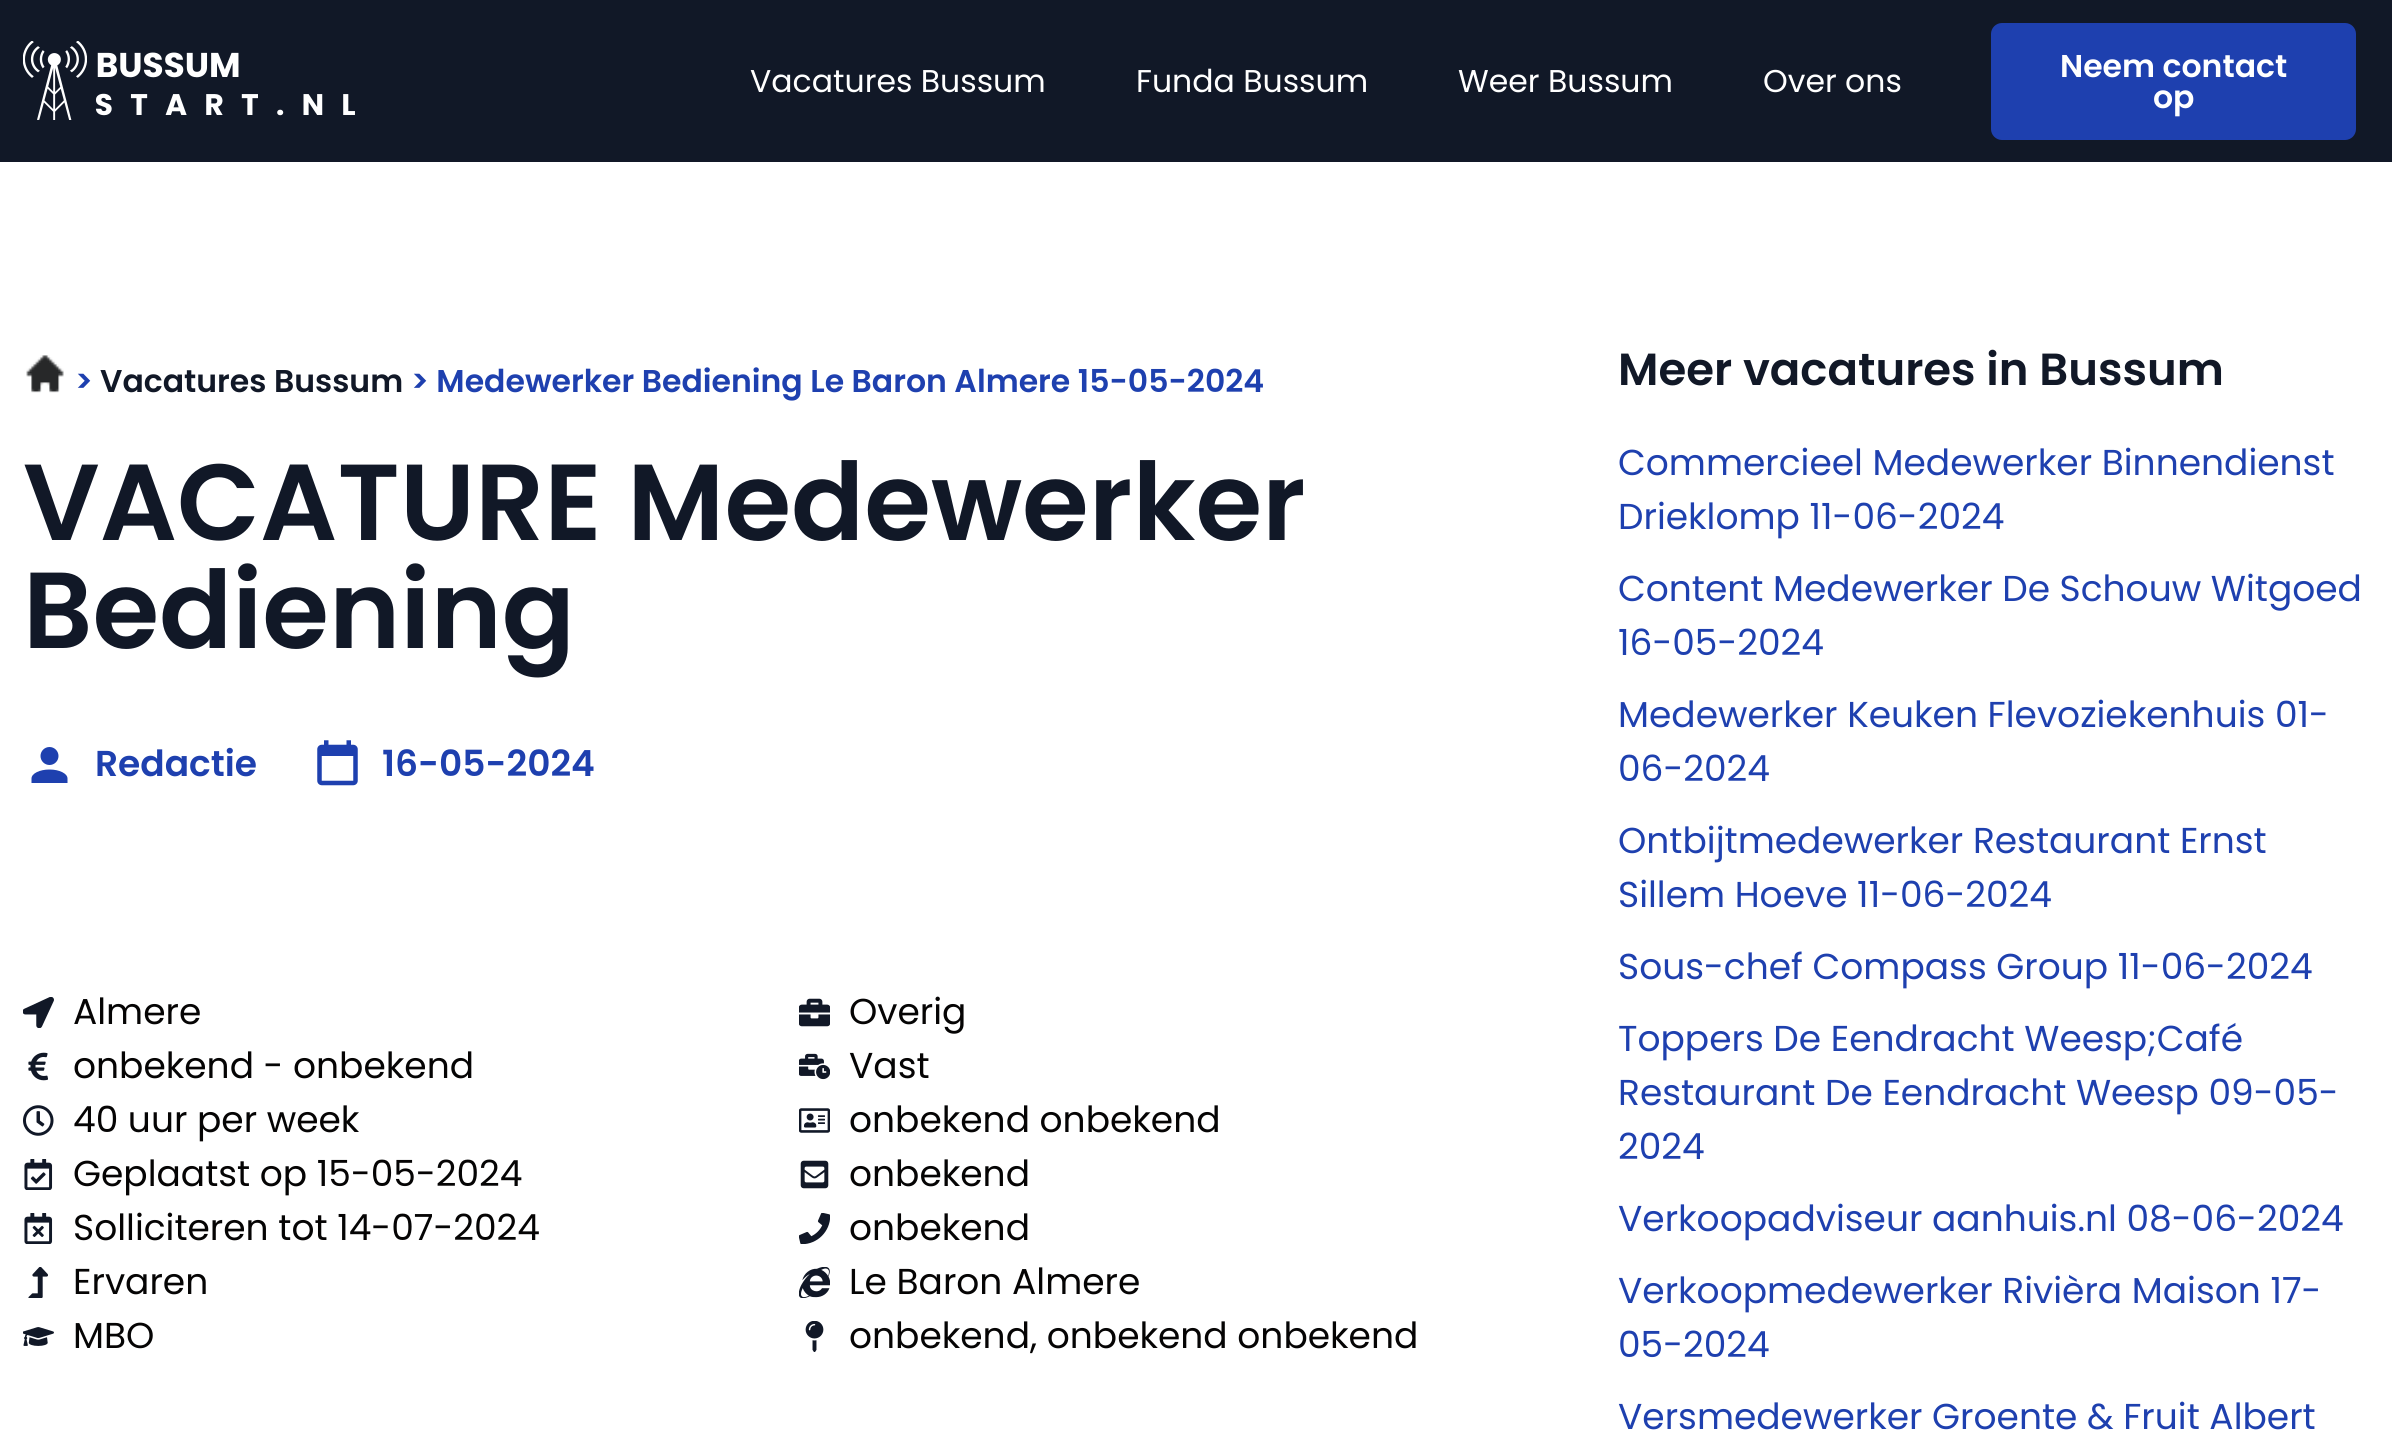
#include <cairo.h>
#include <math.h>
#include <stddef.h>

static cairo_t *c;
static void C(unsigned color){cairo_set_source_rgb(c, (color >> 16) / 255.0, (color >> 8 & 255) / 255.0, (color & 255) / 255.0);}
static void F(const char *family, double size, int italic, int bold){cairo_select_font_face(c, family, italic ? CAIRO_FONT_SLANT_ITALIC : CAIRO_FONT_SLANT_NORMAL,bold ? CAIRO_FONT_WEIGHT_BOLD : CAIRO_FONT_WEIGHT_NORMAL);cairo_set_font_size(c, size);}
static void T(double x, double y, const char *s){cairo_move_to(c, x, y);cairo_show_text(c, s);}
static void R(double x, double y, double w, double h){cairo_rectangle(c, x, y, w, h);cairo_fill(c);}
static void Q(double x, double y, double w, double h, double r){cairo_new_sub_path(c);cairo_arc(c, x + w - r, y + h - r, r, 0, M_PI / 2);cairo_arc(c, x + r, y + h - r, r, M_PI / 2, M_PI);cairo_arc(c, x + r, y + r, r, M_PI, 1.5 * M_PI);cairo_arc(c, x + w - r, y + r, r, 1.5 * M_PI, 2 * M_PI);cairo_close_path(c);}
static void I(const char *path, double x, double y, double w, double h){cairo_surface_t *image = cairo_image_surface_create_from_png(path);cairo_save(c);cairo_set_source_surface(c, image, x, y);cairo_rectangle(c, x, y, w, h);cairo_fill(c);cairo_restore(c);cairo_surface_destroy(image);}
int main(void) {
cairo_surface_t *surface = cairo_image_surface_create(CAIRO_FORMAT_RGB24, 2392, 1454);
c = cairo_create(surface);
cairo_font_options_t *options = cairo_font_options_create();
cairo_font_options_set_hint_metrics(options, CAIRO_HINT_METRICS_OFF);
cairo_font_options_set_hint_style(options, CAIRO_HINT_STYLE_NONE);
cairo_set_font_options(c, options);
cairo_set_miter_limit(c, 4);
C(0xffffff);
cairo_paint(c);
C(0x111827);
R(0,0,2392,162);
I("1.png",23,41,332,79);
F("Poppins",31.5,0,0);
C(0xffffff);
T(750,92,"Vacatures Bussum");
T(1136,92,"Funda Bussum");
T(1458,92,"Weer Bussum");
T(1763,92,"Over ons");
C(0x1e40af);
Q(1991,23,365,117,11);
cairo_fill(c);
F("Poppins SemiBold",31.5,0,0);
C(0xffffff);
T(2060,77,"Neem contact");
T(2153,108,"op");
I("2.png",26,355,38,38);
C(0x1e40af);
T(75,392,">");
C(0x111827);
T(100,392,"Vacatures Bussum");
C(0x1e40af);
T(411,392,"> Medewerker Bediening Le Baron Almere 15-05-2024");
F("Poppins SemiBold",108,0,0);
C(0x111827);
T(23,540,"VACATURE Medewerker");
T(23,648,"Bediening");
I("3.png",31,747,37,36);
F("Poppins SemiBold",36,0,0);
C(0x1e40af);
T(95,776,"Redactie");
I("4.png",317,740,41,46);
T(382,776,"16-05-2024");
I("5.png",23,997,31,31);
F("Poppins",36,0,0);
C(0x050404);
T(73,1024,"Almere");
I("6.png",28,1052,20,29);
T(73,1078,"onbekend - onbekend");
I("7.png",23,1105,31,31);
T(73,1132,"40 uur per week");
I("8.png",24,1159,29,31);
T(73,1186,"Geplaatst op 15-05-2024");
I("9.png",24,1213,29,31);
T(73,1240,"Solliciteren tot 14-07-2024");
I("10.png",28,1267,20,31);
T(73,1294,"Ervaren");
I("11.png",23,1327,31,19);
T(73,1348,"MBO");
I("12.png",799,998,31,29);
T(849,1024,"Overig");
I("13.png",799,1053,31,27);
T(849,1078,"Vast");
I("14.png",799,1108,31,25);
T(849,1132,"onbekend onbekend");
I("15.png",800,1160,29,29);
T(849,1186,"onbekend");
I("16.png",799,1213,31,31);
T(849,1240,"onbekend");
I("17.png",799,1267,31,31);
T(849,1294,"Le Baron Almere");
I("18.png",805,1321,19,31);
T(849,1348,"onbekend, onbekend onbekend");
F("Poppins SemiBold",45,0,0);
C(0x111827);
T(1618,385,"Meer vacatures in Bussum");
F("Poppins",36,0,0);
C(0x1e40af);
T(1618,475,"Commercieel Medewerker Binnendienst");
T(1618,529,"Drieklomp 11-06-2024");
T(1618,601,"Content Medewerker De Schouw Witgoed");
T(1618,655,"16-05-2024");
T(1618,727,"Medewerker Keuken Flevoziekenhuis 01-");
T(1618,781,"06-2024");
T(1618,853,"Ontbijtmedewerker Restaurant Ernst");
T(1618,907,"Sillem Hoeve 11-06-2024");
T(1618,979,"Sous-chef Compass Group 11-06-2024");
T(1618,1051,"Toppers De Eendracht Weesp;Café");
T(1618,1105,"Restaurant De Eendracht Weesp 09-05-");
T(1618,1159,"2024");
T(1618,1231,"Verkoopadviseur aanhuis.nl 08-06-2024");
T(1618,1303,"Verkoopmedewerker Rivièra Maison 17-");
T(1618,1357,"05-2024");
T(1618,1429,"Versmedewerker Groente & Fruit Albert");
cairo_surface_write_to_png(surface, "o.png");
cairo_font_options_destroy(options);
cairo_destroy(c);
cairo_surface_destroy(surface);
return 0;
}
